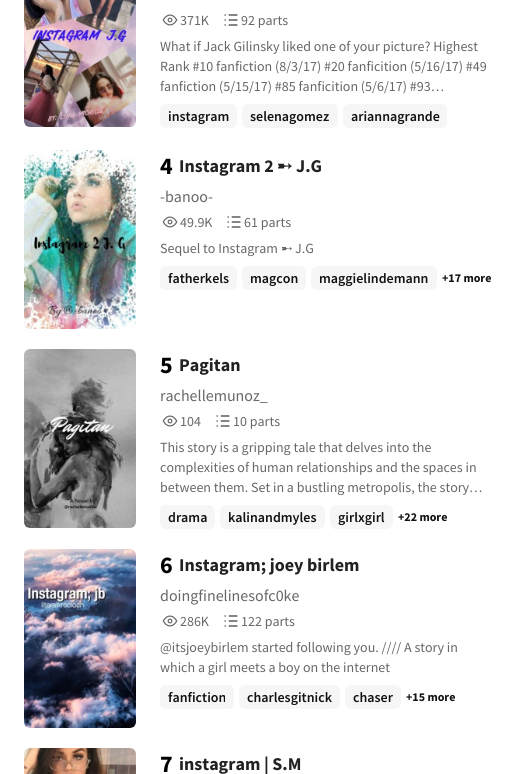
#include <cairo.h>
#include <math.h>
#include <stddef.h>

static cairo_t *c;
static void C(unsigned color){cairo_set_source_rgb(c, (color >> 16) / 255.0, (color >> 8 & 255) / 255.0, (color & 255) / 255.0);}
static void F(const char *family, double size, int italic, int bold){cairo_select_font_face(c, family, italic ? CAIRO_FONT_SLANT_ITALIC : CAIRO_FONT_SLANT_NORMAL,bold ? CAIRO_FONT_WEIGHT_BOLD : CAIRO_FONT_WEIGHT_NORMAL);cairo_set_font_size(c, size);}
static void T(double x, double y, const char *s){cairo_move_to(c, x, y);cairo_show_text(c, s);}
static void Q(double x, double y, double w, double h, double r){cairo_new_sub_path(c);cairo_arc(c, x + w - r, y + h - r, r, 0, M_PI / 2);cairo_arc(c, x + r, y + h - r, r, M_PI / 2, M_PI);cairo_arc(c, x + r, y + r, r, M_PI, 1.5 * M_PI);cairo_arc(c, x + w - r, y + r, r, 1.5 * M_PI, 2 * M_PI);cairo_close_path(c);}
static void I(const char *path, double x, double y, double w, double h){cairo_surface_t *image = cairo_image_surface_create_from_png(path);cairo_save(c);cairo_set_source_surface(c, image, x, y);cairo_rectangle(c, x, y, w, h);cairo_fill(c);cairo_restore(c);cairo_surface_destroy(image);}
int main(void) {
cairo_surface_t *surface = cairo_image_surface_create(CAIRO_FORMAT_RGB24, 525, 774);
c = cairo_create(surface);
cairo_font_options_t *options = cairo_font_options_create();
cairo_font_options_set_hint_metrics(options, CAIRO_HINT_METRICS_OFF);
cairo_font_options_set_hint_style(options, CAIRO_HINT_STYLE_NONE);
cairo_set_font_options(c, options);
cairo_set_miter_limit(c, 4);
C(0xffffff);
cairo_paint(c);
I("1.png",24,0,112,127);
I("2.png",162,14,16,12);
F("Source Sans Pro",14,0,0);
C(0x676767);
T(180,25,"371K");
I("3.png",224,14,14,12);
T(241,25,"92 parts");
T(160,51,"What if Jack Gilinsky liked one of your picture? Highest");
T(160,71,"Rank #10 fanfiction (8/3/17) #20 fanficition (5/16/17) #49");
T(160,91,"fanfiction (5/15/17) #85 fanficition (5/6/17) #93…");
C(0xf6f6f6);
Q(160,104,77,24,6);
cairo_fill(c);
F("Source Sans Pro SemiBold",14,0,0);
C(0x121212);
T(168,121,"instagram");
C(0xf6f6f6);
Q(242,104,96,24,6);
cairo_fill(c);
C(0x121212);
T(250,121,"selenagomez");
C(0xf6f6f6);
Q(343,104,104,24,6);
cairo_fill(c);
C(0x121212);
T(351,121,"ariannagrande");
I("4.png",24,150,112,179);
F("Source Sans Pro",24,0,1);
C(0x000000);
T(160,174,"4");
F("Source Sans Pro",18,0,1);
C(0x222222);
T(179,172,"Instagram 2");
F("DejaVu Sans",18,0,1);
T(277,172,"➸");
F("Source Sans Pro",18,0,1);
T(296,172,"J.G");
F("Source Sans Pro",16,0,0);
C(0x676767);
T(160,202,"-banoo-");
I("2.png",162,216,16,12);
F("Source Sans Pro",14,0,0);
T(180,227,"49.9K");
I("3.png",227,216,14,12);
T(244,227,"61 parts");
T(160,253,"Sequel to Instagram");
F("DejaVu Sans",14,0,0);
T(281,253,"➸");
F("Source Sans Pro",14,0,0);
T(295,253,"J.G");
C(0xf6f6f6);
Q(160,266,77,24,6);
cairo_fill(c);
F("Source Sans Pro SemiBold",14,0,0);
C(0x121212);
T(168,283,"fatherkels");
C(0xf6f6f6);
Q(242,266,64,24,6);
cairo_fill(c);
C(0x121212);
T(250,283,"magcon");
C(0xf6f6f6);
Q(311,266,126,24,6);
cairo_fill(c);
C(0x121212);
T(319,283,"maggielindemann");
F("Source Sans Pro",12,0,1);
T(442,282,"+17 more");
I("5.png",24,349,112,179);
F("Source Sans Pro",24,0,1);
C(0x000000);
T(160,373,"5");
F("Source Sans Pro",18,0,1);
C(0x222222);
T(179,371,"Pagitan");
F("Source Sans Pro",16,0,0);
C(0x676767);
T(160,401,"rachellemunoz_");
I("2.png",162,415,16,12);
F("Source Sans Pro",14,0,0);
T(180,426,"104");
I("3.png",216,415,14,12);
T(233,426,"10 parts");
T(160,452,"This story is a gripping tale that delves into the");
T(160,472,"complexities of human relationships and the spaces in");
T(160,492,"between them. Set in a bustling metropolis, the story…");
C(0xf6f6f6);
Q(160,505,55,24,6);
cairo_fill(c);
F("Source Sans Pro SemiBold",14,0,0);
C(0x121212);
T(168,522,"drama");
C(0xf6f6f6);
Q(220,505,105,24,6);
cairo_fill(c);
C(0x121212);
T(228,522,"kalinandmyles");
C(0xf6f6f6);
Q(330,505,63,24,6);
cairo_fill(c);
C(0x121212);
T(338,522,"girlxgirl");
F("Source Sans Pro",12,0,1);
T(398,521,"+22 more");
I("6.png",24,549,112,179);
F("Source Sans Pro",24,0,1);
C(0x000000);
T(160,573,"6");
F("Source Sans Pro",18,0,1);
C(0x222222);
T(179,571,"Instagram; joey birlem");
F("Source Sans Pro",16,0,0);
C(0x676767);
T(160,601,"doingfinelinesofc0ke");
I("2.png",162,615,16,12);
F("Source Sans Pro",14,0,0);
T(180,626,"286K");
I("3.png",224,615,14,12);
T(241,626,"122 parts");
T(160,652,"@itsjoeybirlem started following you. //// A story in");
T(160,672,"which a girl meets a boy on the internet");
C(0xf6f6f6);
Q(160,685,74,24,6);
cairo_fill(c);
F("Source Sans Pro SemiBold",14,0,0);
C(0x121212);
T(168,702,"fanfiction");
C(0xf6f6f6);
Q(239,685,101,24,6);
cairo_fill(c);
C(0x121212);
T(247,702,"charlesgitnick");
C(0xf6f6f6);
Q(345,685,56,24,6);
cairo_fill(c);
C(0x121212);
T(353,702,"chaser");
F("Source Sans Pro",12,0,1);
T(406,701,"+15 more");
I("7.png",24,748,112,26);
F("Source Sans Pro",24,0,1);
C(0x000000);
T(160,772,"7");
F("Source Sans Pro",18,0,1);
C(0x222222);
T(179,770,"instagram | S.M");
cairo_surface_write_to_png(surface, "o.png");
cairo_font_options_destroy(options);
cairo_destroy(c);
cairo_surface_destroy(surface);
return 0;
}
